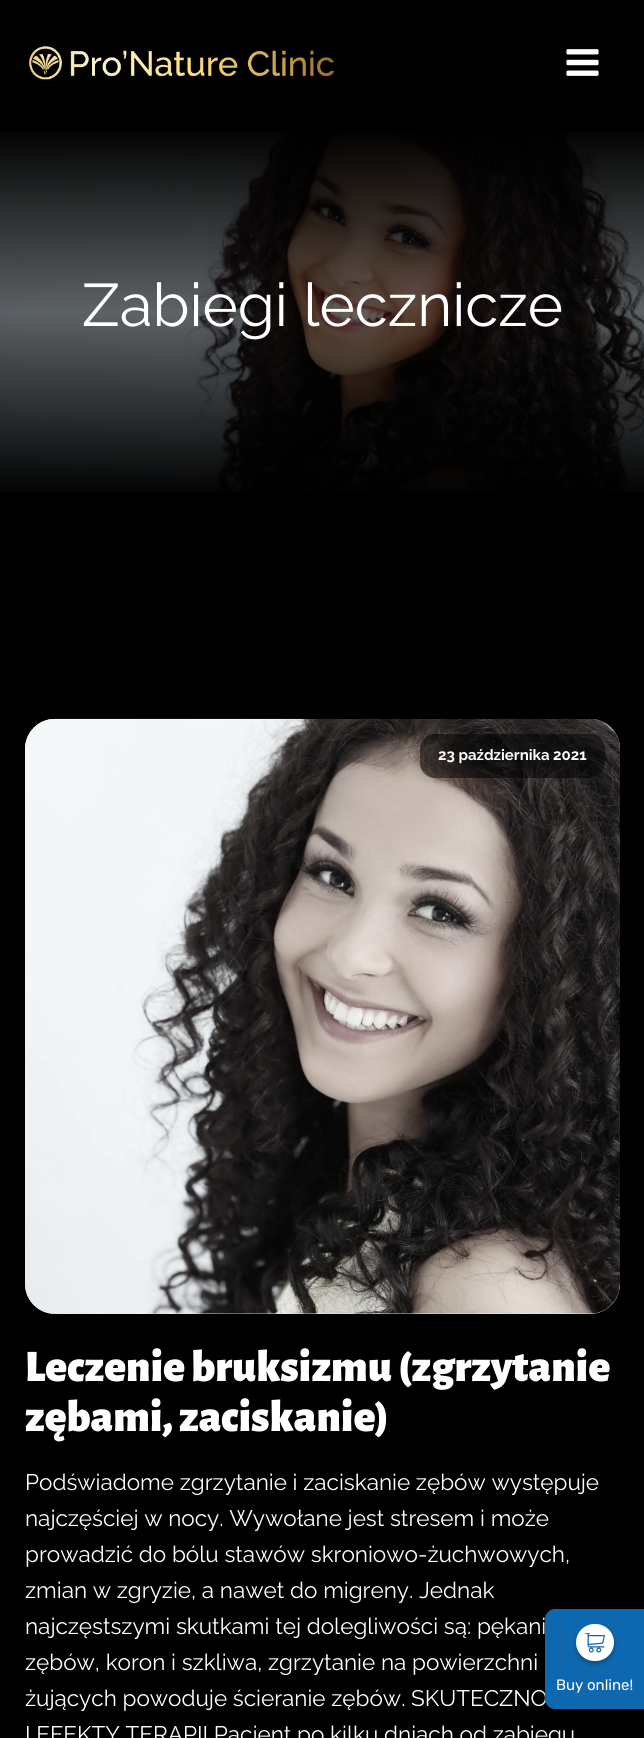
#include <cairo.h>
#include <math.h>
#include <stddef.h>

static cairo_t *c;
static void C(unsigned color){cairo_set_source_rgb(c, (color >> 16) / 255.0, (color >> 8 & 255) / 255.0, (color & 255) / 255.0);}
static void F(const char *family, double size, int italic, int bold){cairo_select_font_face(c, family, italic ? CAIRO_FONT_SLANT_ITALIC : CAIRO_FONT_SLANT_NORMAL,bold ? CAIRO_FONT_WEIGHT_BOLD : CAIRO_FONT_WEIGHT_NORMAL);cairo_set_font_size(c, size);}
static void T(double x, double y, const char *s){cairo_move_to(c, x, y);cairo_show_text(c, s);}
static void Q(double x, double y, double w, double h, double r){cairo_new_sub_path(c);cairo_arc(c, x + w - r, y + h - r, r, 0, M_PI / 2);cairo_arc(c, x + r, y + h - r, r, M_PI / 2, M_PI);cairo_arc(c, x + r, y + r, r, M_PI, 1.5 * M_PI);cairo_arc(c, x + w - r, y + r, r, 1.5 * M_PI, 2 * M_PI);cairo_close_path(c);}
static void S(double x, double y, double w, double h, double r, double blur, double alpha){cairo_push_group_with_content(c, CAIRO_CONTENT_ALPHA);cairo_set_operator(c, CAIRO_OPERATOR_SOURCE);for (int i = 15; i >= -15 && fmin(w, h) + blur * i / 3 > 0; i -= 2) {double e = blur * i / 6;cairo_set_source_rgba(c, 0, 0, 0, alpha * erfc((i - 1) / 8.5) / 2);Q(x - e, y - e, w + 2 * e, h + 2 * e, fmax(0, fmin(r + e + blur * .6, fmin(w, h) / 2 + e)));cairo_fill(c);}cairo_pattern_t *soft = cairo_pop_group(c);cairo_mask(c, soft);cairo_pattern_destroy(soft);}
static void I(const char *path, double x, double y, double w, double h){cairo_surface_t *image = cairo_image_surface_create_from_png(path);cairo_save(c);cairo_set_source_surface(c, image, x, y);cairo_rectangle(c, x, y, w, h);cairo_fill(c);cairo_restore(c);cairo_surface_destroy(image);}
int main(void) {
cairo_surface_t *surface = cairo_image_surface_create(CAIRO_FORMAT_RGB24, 644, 1738);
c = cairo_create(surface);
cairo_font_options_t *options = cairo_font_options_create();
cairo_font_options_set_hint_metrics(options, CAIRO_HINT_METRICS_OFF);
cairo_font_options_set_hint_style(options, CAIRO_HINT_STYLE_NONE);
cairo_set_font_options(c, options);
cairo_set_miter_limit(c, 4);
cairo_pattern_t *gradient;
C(0x000000);
cairo_paint(c);
I("1.png",29,46,306,34);
I("2.png",566,49,33,27);
I("3.png",0,132,644,360);
F("Raleway",60,0,0);
C(0xffffff);
T(82,326,"Zabiegi lecznicze");
gradient = cairo_pattern_create_linear(25,1314,626,713);
cairo_pattern_add_color_stop_rgba(gradient,0,0.933,0.933,0.933,1);
cairo_pattern_add_color_stop_rgba(gradient,.01,0.933,0.933,0.933,1);
cairo_pattern_add_color_stop_rgba(gradient,.01,0.867,0.867,0.867,1);
cairo_pattern_add_color_stop_rgba(gradient,.03,0.867,0.867,0.867,1);
cairo_pattern_add_color_stop_rgba(gradient,.03,0.933,0.933,0.933,1);
cairo_pattern_add_color_stop_rgba(gradient,.04,0.933,0.933,0.933,1);
cairo_pattern_add_color_stop_rgba(gradient,.04,0.867,0.867,0.867,1);
cairo_pattern_add_color_stop_rgba(gradient,.06,0.867,0.867,0.867,1);
cairo_pattern_add_color_stop_rgba(gradient,.06,0.933,0.933,0.933,1);
cairo_pattern_add_color_stop_rgba(gradient,.07,0.933,0.933,0.933,1);
cairo_pattern_add_color_stop_rgba(gradient,.07,0.867,0.867,0.867,1);
cairo_pattern_add_color_stop_rgba(gradient,.09,0.867,0.867,0.867,1);
cairo_pattern_add_color_stop_rgba(gradient,.09,0.933,0.933,0.933,1);
cairo_pattern_add_color_stop_rgba(gradient,.1,0.933,0.933,0.933,1);
cairo_pattern_add_color_stop_rgba(gradient,.1,0.867,0.867,0.867,1);
cairo_pattern_add_color_stop_rgba(gradient,.12,0.867,0.867,0.867,1);
cairo_pattern_add_color_stop_rgba(gradient,.12,0.933,0.933,0.933,1);
cairo_pattern_add_color_stop_rgba(gradient,.13,0.933,0.933,0.933,1);
cairo_pattern_add_color_stop_rgba(gradient,.13,0.867,0.867,0.867,1);
cairo_pattern_add_color_stop_rgba(gradient,.15,0.867,0.867,0.867,1);
cairo_pattern_add_color_stop_rgba(gradient,.15,0.933,0.933,0.933,1);
cairo_pattern_add_color_stop_rgba(gradient,.16,0.933,0.933,0.933,1);
cairo_pattern_add_color_stop_rgba(gradient,.16,0.867,0.867,0.867,1);
cairo_pattern_add_color_stop_rgba(gradient,.18,0.867,0.867,0.867,1);
cairo_pattern_add_color_stop_rgba(gradient,.18,0.933,0.933,0.933,1);
cairo_pattern_add_color_stop_rgba(gradient,.19,0.933,0.933,0.933,1);
cairo_pattern_add_color_stop_rgba(gradient,.19,0.867,0.867,0.867,1);
cairo_pattern_add_color_stop_rgba(gradient,.21,0.867,0.867,0.867,1);
cairo_pattern_add_color_stop_rgba(gradient,.21,0.933,0.933,0.933,1);
cairo_pattern_add_color_stop_rgba(gradient,.22,0.933,0.933,0.933,1);
cairo_pattern_add_color_stop_rgba(gradient,.22,0.867,0.867,0.867,1);
cairo_pattern_add_color_stop_rgba(gradient,.24,0.867,0.867,0.867,1);
cairo_pattern_add_color_stop_rgba(gradient,.24,0.933,0.933,0.933,1);
cairo_pattern_add_color_stop_rgba(gradient,.25,0.933,0.933,0.933,1);
cairo_pattern_add_color_stop_rgba(gradient,.25,0.867,0.867,0.867,1);
cairo_pattern_add_color_stop_rgba(gradient,.26,0.867,0.867,0.867,1);
cairo_pattern_add_color_stop_rgba(gradient,.26,0.933,0.933,0.933,1);
cairo_pattern_add_color_stop_rgba(gradient,.28,0.933,0.933,0.933,1);
cairo_pattern_add_color_stop_rgba(gradient,.28,0.867,0.867,0.867,1);
cairo_pattern_add_color_stop_rgba(gradient,.29,0.867,0.867,0.867,1);
cairo_pattern_add_color_stop_rgba(gradient,.29,0.933,0.933,0.933,1);
cairo_pattern_add_color_stop_rgba(gradient,.31,0.933,0.933,0.933,1);
cairo_pattern_add_color_stop_rgba(gradient,.31,0.867,0.867,0.867,1);
cairo_pattern_add_color_stop_rgba(gradient,.32,0.867,0.867,0.867,1);
cairo_pattern_add_color_stop_rgba(gradient,.32,0.933,0.933,0.933,1);
cairo_pattern_add_color_stop_rgba(gradient,.34,0.933,0.933,0.933,1);
cairo_pattern_add_color_stop_rgba(gradient,.34,0.867,0.867,0.867,1);
cairo_pattern_add_color_stop_rgba(gradient,.35,0.867,0.867,0.867,1);
cairo_pattern_add_color_stop_rgba(gradient,.35,0.933,0.933,0.933,1);
cairo_pattern_add_color_stop_rgba(gradient,.37,0.933,0.933,0.933,1);
cairo_pattern_add_color_stop_rgba(gradient,.37,0.867,0.867,0.867,1);
cairo_pattern_add_color_stop_rgba(gradient,.38,0.867,0.867,0.867,1);
cairo_pattern_add_color_stop_rgba(gradient,.38,0.933,0.933,0.933,1);
cairo_pattern_add_color_stop_rgba(gradient,.4,0.933,0.933,0.933,1);
cairo_pattern_add_color_stop_rgba(gradient,.4,0.867,0.867,0.867,1);
cairo_pattern_add_color_stop_rgba(gradient,.41,0.867,0.867,0.867,1);
cairo_pattern_add_color_stop_rgba(gradient,.41,0.933,0.933,0.933,1);
cairo_pattern_add_color_stop_rgba(gradient,.43,0.933,0.933,0.933,1);
cairo_pattern_add_color_stop_rgba(gradient,.43,0.867,0.867,0.867,1);
cairo_pattern_add_color_stop_rgba(gradient,.44,0.867,0.867,0.867,1);
cairo_pattern_add_color_stop_rgba(gradient,.44,0.933,0.933,0.933,1);
cairo_pattern_add_color_stop_rgba(gradient,.46,0.933,0.933,0.933,1);
cairo_pattern_add_color_stop_rgba(gradient,.46,0.867,0.867,0.867,1);
cairo_pattern_add_color_stop_rgba(gradient,.47,0.867,0.867,0.867,1);
cairo_pattern_add_color_stop_rgba(gradient,.47,0.933,0.933,0.933,1);
cairo_pattern_add_color_stop_rgba(gradient,.49,0.933,0.933,0.933,1);
cairo_pattern_add_color_stop_rgba(gradient,.49,0.867,0.867,0.867,1);
cairo_pattern_add_color_stop_rgba(gradient,.5,0.867,0.867,0.867,1);
cairo_pattern_add_color_stop_rgba(gradient,.5,0.933,0.933,0.933,1);
cairo_pattern_add_color_stop_rgba(gradient,.51,0.933,0.933,0.933,1);
cairo_pattern_add_color_stop_rgba(gradient,.51,0.867,0.867,0.867,1);
cairo_pattern_add_color_stop_rgba(gradient,.53,0.867,0.867,0.867,1);
cairo_pattern_add_color_stop_rgba(gradient,.53,0.933,0.933,0.933,1);
cairo_pattern_add_color_stop_rgba(gradient,.54,0.933,0.933,0.933,1);
cairo_pattern_add_color_stop_rgba(gradient,.54,0.867,0.867,0.867,1);
cairo_pattern_add_color_stop_rgba(gradient,.56,0.867,0.867,0.867,1);
cairo_pattern_add_color_stop_rgba(gradient,.56,0.933,0.933,0.933,1);
cairo_pattern_add_color_stop_rgba(gradient,.57,0.933,0.933,0.933,1);
cairo_pattern_add_color_stop_rgba(gradient,.57,0.867,0.867,0.867,1);
cairo_pattern_add_color_stop_rgba(gradient,.59,0.867,0.867,0.867,1);
cairo_pattern_add_color_stop_rgba(gradient,.59,0.933,0.933,0.933,1);
cairo_pattern_add_color_stop_rgba(gradient,.6,0.933,0.933,0.933,1);
cairo_pattern_add_color_stop_rgba(gradient,.6,0.867,0.867,0.867,1);
cairo_pattern_add_color_stop_rgba(gradient,.62,0.867,0.867,0.867,1);
cairo_pattern_add_color_stop_rgba(gradient,.62,0.933,0.933,0.933,1);
cairo_pattern_add_color_stop_rgba(gradient,.63,0.933,0.933,0.933,1);
cairo_pattern_add_color_stop_rgba(gradient,.63,0.867,0.867,0.867,1);
cairo_pattern_add_color_stop_rgba(gradient,.65,0.867,0.867,0.867,1);
cairo_pattern_add_color_stop_rgba(gradient,.65,0.933,0.933,0.933,1);
cairo_pattern_add_color_stop_rgba(gradient,.66,0.933,0.933,0.933,1);
cairo_pattern_add_color_stop_rgba(gradient,.66,0.867,0.867,0.867,1);
cairo_pattern_add_color_stop_rgba(gradient,.68,0.867,0.867,0.867,1);
cairo_pattern_add_color_stop_rgba(gradient,.68,0.933,0.933,0.933,1);
cairo_pattern_add_color_stop_rgba(gradient,.69,0.933,0.933,0.933,1);
cairo_pattern_add_color_stop_rgba(gradient,.69,0.867,0.867,0.867,1);
cairo_pattern_add_color_stop_rgba(gradient,.71,0.867,0.867,0.867,1);
cairo_pattern_add_color_stop_rgba(gradient,.71,0.933,0.933,0.933,1);
cairo_pattern_add_color_stop_rgba(gradient,.72,0.933,0.933,0.933,1);
cairo_pattern_add_color_stop_rgba(gradient,.72,0.867,0.867,0.867,1);
cairo_pattern_add_color_stop_rgba(gradient,.74,0.867,0.867,0.867,1);
cairo_pattern_add_color_stop_rgba(gradient,.74,0.933,0.933,0.933,1);
cairo_pattern_add_color_stop_rgba(gradient,.75,0.933,0.933,0.933,1);
cairo_pattern_add_color_stop_rgba(gradient,.75,0.867,0.867,0.867,1);
cairo_pattern_add_color_stop_rgba(gradient,.76,0.867,0.867,0.867,1);
cairo_pattern_add_color_stop_rgba(gradient,.76,0.933,0.933,0.933,1);
cairo_pattern_add_color_stop_rgba(gradient,.78,0.933,0.933,0.933,1);
cairo_pattern_add_color_stop_rgba(gradient,.78,0.867,0.867,0.867,1);
cairo_pattern_add_color_stop_rgba(gradient,.79,0.867,0.867,0.867,1);
cairo_pattern_add_color_stop_rgba(gradient,.79,0.933,0.933,0.933,1);
cairo_pattern_add_color_stop_rgba(gradient,.81,0.933,0.933,0.933,1);
cairo_pattern_add_color_stop_rgba(gradient,.81,0.867,0.867,0.867,1);
cairo_pattern_add_color_stop_rgba(gradient,.82,0.867,0.867,0.867,1);
cairo_pattern_add_color_stop_rgba(gradient,.82,0.933,0.933,0.933,1);
cairo_pattern_add_color_stop_rgba(gradient,.84,0.933,0.933,0.933,1);
cairo_pattern_add_color_stop_rgba(gradient,.84,0.867,0.867,0.867,1);
cairo_pattern_add_color_stop_rgba(gradient,.85,0.867,0.867,0.867,1);
cairo_pattern_add_color_stop_rgba(gradient,.85,0.933,0.933,0.933,1);
cairo_pattern_add_color_stop_rgba(gradient,.87,0.933,0.933,0.933,1);
cairo_pattern_add_color_stop_rgba(gradient,.87,0.867,0.867,0.867,1);
cairo_pattern_add_color_stop_rgba(gradient,.88,0.867,0.867,0.867,1);
cairo_pattern_add_color_stop_rgba(gradient,.88,0.933,0.933,0.933,1);
cairo_pattern_add_color_stop_rgba(gradient,.9,0.933,0.933,0.933,1);
cairo_pattern_add_color_stop_rgba(gradient,.9,0.867,0.867,0.867,1);
cairo_pattern_add_color_stop_rgba(gradient,.91,0.867,0.867,0.867,1);
cairo_pattern_add_color_stop_rgba(gradient,.91,0.933,0.933,0.933,1);
cairo_pattern_add_color_stop_rgba(gradient,.93,0.933,0.933,0.933,1);
cairo_pattern_add_color_stop_rgba(gradient,.93,0.867,0.867,0.867,1);
cairo_pattern_add_color_stop_rgba(gradient,.94,0.867,0.867,0.867,1);
cairo_pattern_add_color_stop_rgba(gradient,.94,0.933,0.933,0.933,1);
cairo_pattern_add_color_stop_rgba(gradient,.96,0.933,0.933,0.933,1);
cairo_pattern_add_color_stop_rgba(gradient,.96,0.867,0.867,0.867,1);
cairo_pattern_add_color_stop_rgba(gradient,.97,0.867,0.867,0.867,1);
cairo_pattern_add_color_stop_rgba(gradient,.97,0.933,0.933,0.933,1);
cairo_pattern_add_color_stop_rgba(gradient,.99,0.933,0.933,0.933,1);
cairo_pattern_add_color_stop_rgba(gradient,.99,0.867,0.867,0.867,1);
cairo_pattern_add_color_stop_rgba(gradient,1,0.867,0.867,0.867,1);
cairo_set_source(c,gradient);
cairo_pattern_destroy(gradient);
Q(25,719,595,595,30);
cairo_fill(c);
I("4.png",25,718,595,596);
cairo_set_source_rgba(c,0,0,0,0.5);
Q(420,734,185,44,15);
cairo_fill(c);
F("Raleway",15,0,1);
C(0xffffff);
T(438,760,"23 października 2021");
F("Alegreya Sans Black",45,0,0);
T(25,1381,"Leczenie bruksizmu (zgrzytanie");
T(25,1431,"zębami, zaciskanie)");
F("Raleway",22.5,0,0);
T(25,1490,"Podświadome zgrzytanie i zaciskanie zębów występuje");
T(25,1526,"najczęściej w nocy. Wywołane jest stresem i może");
T(25,1562,"prowadzić do bólu stawów skroniowo-żuchwowych,");
T(25,1598,"zmian w zgryzie, a nawet do migreny. Jednak");
T(25,1634,"najczęstszymi skutkami tej dolegliwości są: pękani");
T(25,1670,"zębów, koron i szkliwa, zgrzytanie na powierzchni");
T(25,1706,"żujących powoduje ścieranie zębów. SKUTECZNO");
T(25,1742,"I EFEKTY TERAPII Pacjent po kilku dniach od zabiegu");
C(0x000000);
S(544,1610,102,103,11,2,.2);
C(0x0e68af);
cairo_new_path(c);
cairo_move_to(c,555,1609);
cairo_line_to(c,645,1609);
cairo_line_to(c,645,1709);
cairo_line_to(c,555,1709);
cairo_curve_to(c,549.5,1709,545,1704.5,545,1699);
cairo_line_to(c,545,1619);
cairo_curve_to(c,545,1613.5,549.5,1609,555,1609);
cairo_close_path(c);
cairo_fill(c);
C(0x000000);
S(575,1625,40,40,20,2,.2);
C(0xffffff);
Q(576,1624,38,37,18.5);
cairo_fill(c);
I("5.png",585,1633,20,20);
F("Rubik",15,0,0);
T(556,1690,"Buy online!");
cairo_surface_write_to_png(surface, "o.png");
cairo_font_options_destroy(options);
cairo_destroy(c);
cairo_surface_destroy(surface);
return 0;
}
